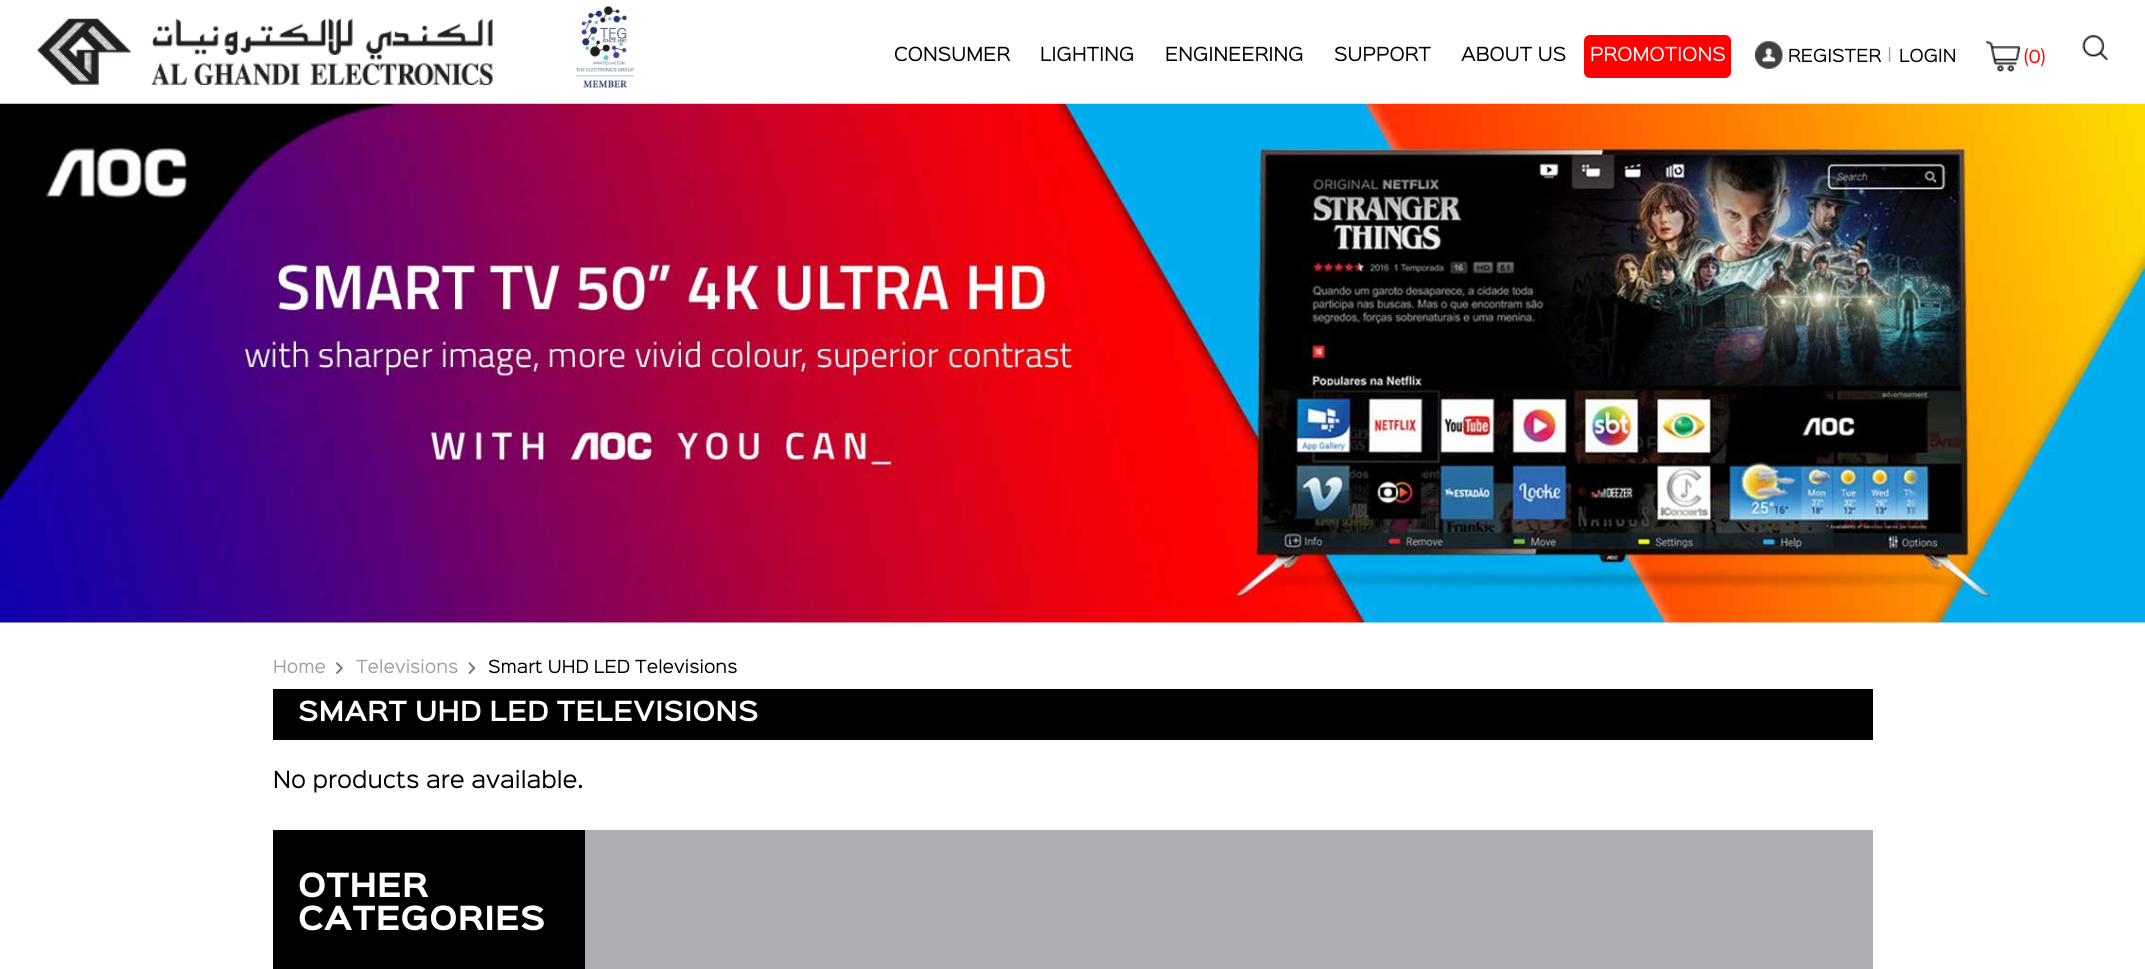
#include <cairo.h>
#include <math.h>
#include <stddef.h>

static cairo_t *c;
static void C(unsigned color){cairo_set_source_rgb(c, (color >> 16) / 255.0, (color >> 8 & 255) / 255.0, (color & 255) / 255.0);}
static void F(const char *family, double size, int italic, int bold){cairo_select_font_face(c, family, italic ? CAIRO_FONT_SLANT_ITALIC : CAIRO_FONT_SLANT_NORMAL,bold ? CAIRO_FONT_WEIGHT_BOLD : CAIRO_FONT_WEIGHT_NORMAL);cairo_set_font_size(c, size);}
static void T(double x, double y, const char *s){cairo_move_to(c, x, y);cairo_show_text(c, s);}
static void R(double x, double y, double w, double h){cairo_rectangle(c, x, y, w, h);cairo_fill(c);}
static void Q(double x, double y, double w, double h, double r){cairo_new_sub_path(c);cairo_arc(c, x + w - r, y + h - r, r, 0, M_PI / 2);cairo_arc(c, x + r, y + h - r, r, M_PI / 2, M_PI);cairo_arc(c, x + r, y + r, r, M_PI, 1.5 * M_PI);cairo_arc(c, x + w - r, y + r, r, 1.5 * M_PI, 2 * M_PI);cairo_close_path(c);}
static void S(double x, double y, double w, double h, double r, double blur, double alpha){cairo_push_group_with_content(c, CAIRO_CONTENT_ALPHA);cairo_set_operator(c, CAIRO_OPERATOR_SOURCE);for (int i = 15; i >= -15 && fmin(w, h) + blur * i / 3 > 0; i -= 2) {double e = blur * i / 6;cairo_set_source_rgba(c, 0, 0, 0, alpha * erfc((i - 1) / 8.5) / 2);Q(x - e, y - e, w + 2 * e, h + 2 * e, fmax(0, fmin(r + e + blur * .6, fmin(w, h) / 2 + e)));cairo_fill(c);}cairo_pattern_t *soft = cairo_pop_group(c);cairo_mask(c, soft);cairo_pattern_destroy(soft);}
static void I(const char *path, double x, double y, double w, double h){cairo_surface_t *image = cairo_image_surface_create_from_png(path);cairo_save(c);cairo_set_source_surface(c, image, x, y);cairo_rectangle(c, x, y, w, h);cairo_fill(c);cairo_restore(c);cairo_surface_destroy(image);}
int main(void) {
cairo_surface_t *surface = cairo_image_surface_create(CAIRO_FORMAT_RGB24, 2145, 969);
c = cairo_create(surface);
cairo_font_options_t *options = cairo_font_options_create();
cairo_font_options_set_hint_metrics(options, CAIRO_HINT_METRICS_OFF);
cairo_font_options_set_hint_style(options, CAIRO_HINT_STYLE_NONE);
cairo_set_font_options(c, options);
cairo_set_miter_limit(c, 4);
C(0xffffff);
cairo_paint(c);
cairo_save(c);
cairo_set_fill_rule(c,CAIRO_FILL_RULE_EVEN_ODD);
cairo_new_path(c);
cairo_move_to(c,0,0);
cairo_line_to(c,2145,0);
cairo_line_to(c,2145,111);
cairo_line_to(c,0,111);
cairo_close_path(c);
cairo_move_to(c,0,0);
cairo_line_to(c,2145,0);
cairo_line_to(c,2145,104);
cairo_line_to(c,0,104);
cairo_close_path(c);
cairo_clip(c);
C(0x9f9f9f);
S(0,0,2145,104,0,2,.73);
cairo_restore(c);
I("1.png",37,18,456,67);
I("2.png",576,5,58,84);
F("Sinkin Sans",17.5,0,0);
C(0x000000);
T(894,61,"CONSUMER");
T(1040,61,"LIGHTING");
T(1165,61,"ENGINEERING");
T(1334,61,"SUPPORT");
T(1461,61,"ABOUT US");
C(0xff0000);
Q(1584,35,147,43,6);
cairo_fill(c);
C(0xffffff);
T(1590,61,"PROMOTIONS");
I("3.png",1755,41,28,28);
F("Sinkin Sans",16.25,0,0);
C(0x000000);
T(1788,62,"REGISTER");
C(0xa0a1a1);
T(1887,61,"|");
C(0x000000);
T(1899,62,"LOGIN");
I("4.png",1986,41,34,31);
C(0xff0101);
T(2024,63,"(0)");
I("5.png",2082,35,26,25);
I("6.png",0,103,2145,520);
C(0xa0a1a1);
T(273,673,"Home");
I("7.png",336,662,7,12);
T(356,673,"Televisions");
I("8.png",468,662,7,12);
C(0x000000);
T(488,673,"Smart UHD LED Televisions");
R(273,689,1600,51);
F("Sinkin Sans SemiBold",25,0,0);
C(0xffffff);
T(298,721,"SMART UHD LED TELEVISIONS");
F("Sinkin Sans",21.25,0,0);
C(0x000000);
T(273,788,"No products are available.");
R(273,830,312,139);
F("Sinkin Sans",30,0,1);
C(0xffffff);
T(298,897,"OTHER");
T(298,930,"CATEGORIES");
C(0xacaeb1);
R(585,830,1288,139);
cairo_surface_write_to_png(surface, "o.png");
cairo_font_options_destroy(options);
cairo_destroy(c);
cairo_surface_destroy(surface);
return 0;
}
